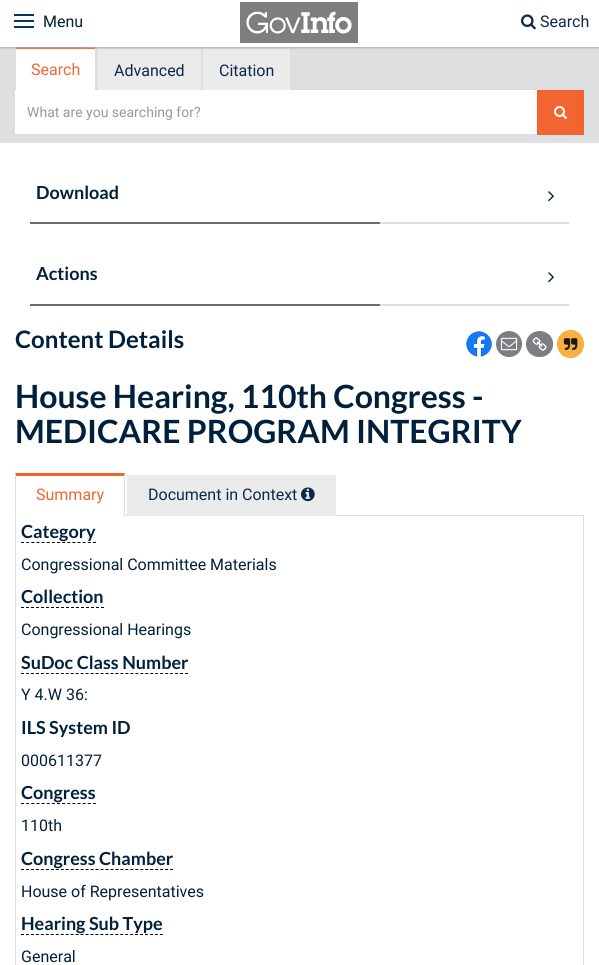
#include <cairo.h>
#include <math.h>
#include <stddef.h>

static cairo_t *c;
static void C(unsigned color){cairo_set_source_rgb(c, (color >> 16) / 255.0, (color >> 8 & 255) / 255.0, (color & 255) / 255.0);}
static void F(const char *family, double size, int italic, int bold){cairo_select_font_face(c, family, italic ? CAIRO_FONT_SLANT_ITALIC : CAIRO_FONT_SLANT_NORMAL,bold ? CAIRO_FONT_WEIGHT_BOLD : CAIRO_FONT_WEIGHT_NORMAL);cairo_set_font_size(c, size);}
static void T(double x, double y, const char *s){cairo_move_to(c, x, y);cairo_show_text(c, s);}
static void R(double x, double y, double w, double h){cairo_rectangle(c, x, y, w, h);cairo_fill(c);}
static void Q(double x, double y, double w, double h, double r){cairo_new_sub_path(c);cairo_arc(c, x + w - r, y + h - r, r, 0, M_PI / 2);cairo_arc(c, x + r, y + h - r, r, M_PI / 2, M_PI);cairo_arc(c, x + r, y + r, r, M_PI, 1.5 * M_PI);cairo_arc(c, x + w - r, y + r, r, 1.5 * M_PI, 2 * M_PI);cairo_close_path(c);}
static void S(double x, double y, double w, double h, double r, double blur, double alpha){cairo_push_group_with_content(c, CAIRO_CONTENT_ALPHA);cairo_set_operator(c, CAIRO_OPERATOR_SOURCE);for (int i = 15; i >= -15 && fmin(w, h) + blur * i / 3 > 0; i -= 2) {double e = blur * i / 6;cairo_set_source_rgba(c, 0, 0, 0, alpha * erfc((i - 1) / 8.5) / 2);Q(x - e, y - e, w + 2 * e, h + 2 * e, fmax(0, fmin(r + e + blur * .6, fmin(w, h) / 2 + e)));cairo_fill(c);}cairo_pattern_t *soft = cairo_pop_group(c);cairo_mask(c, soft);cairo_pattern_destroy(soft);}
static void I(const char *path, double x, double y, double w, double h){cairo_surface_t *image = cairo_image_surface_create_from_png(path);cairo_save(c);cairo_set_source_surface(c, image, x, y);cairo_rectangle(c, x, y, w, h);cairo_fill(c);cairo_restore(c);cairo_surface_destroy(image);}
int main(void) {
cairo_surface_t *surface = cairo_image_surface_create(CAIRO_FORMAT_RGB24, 599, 965);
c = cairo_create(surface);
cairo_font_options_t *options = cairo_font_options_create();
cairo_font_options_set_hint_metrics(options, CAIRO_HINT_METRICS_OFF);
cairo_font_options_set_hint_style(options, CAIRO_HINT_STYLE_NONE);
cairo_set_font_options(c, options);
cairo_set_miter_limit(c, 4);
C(0xffffff);
cairo_paint(c);
C(0xdedfe1);
R(0,47,599,96);
C(0xffffff);
R(15,47,81,43);
C(0xf26531);
cairo_new_path(c);
cairo_move_to(c,15,46);
cairo_line_to(c,96,46);
cairo_line_to(c,95,49);
cairo_line_to(c,16,49);
cairo_close_path(c);
cairo_fill(c);
C(0xdddddd);
cairo_new_path(c);
cairo_move_to(c,96,46);
cairo_line_to(c,96,93);
cairo_line_to(c,95,92);
cairo_line_to(c,95,49);
cairo_close_path(c);
cairo_fill(c);
cairo_new_path(c);
cairo_move_to(c,15,93);
cairo_line_to(c,15,46);
cairo_line_to(c,16,49);
cairo_line_to(c,16,92);
cairo_close_path(c);
cairo_fill(c);
R(96,89,488,1);
C(0xebebeb);
R(98,49,103,41);
R(203,49,87,41);
C(0xacacae);
S(1,0,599,48,0,1,1);
C(0xffffff);
R(0,0,599,47);
C(0x003866);
R(14,14,20,2);
R(14,20,20,2);
R(14,26,20,2);
F("Roboto",16,0,0);
C(0x01203b);
T(43,27,"Menu");
I("1.png",240,2,118,41);
I("2.png",521,14,15,16);
C(0x0b294d);
T(540,27,"Search");
C(0xf26531);
T(31,75,"Search");
C(0x0b294d);
T(114,76,"Advanced");
T(219,76,"Citation");
C(0xffffff);
R(15,90,522,44);
F("Roboto",14,0,0);
C(0x999999);
T(27,117,"What are you searching for?");
C(0xf26531);
cairo_rectangle(c,537.5,90.5,46,44);
cairo_fill_preserve(c);
C(0xec622f);
cairo_set_line_width(c,1);
cairo_stroke(c);
I("3.png",554,106,13,13);
C(0xdedfe1);
R(380,222,189,2);
F("Lato",18,0,1);
C(0x01203b);
T(36,199,"Download");
I("4.png",548,191,6,11);
C(0x666e75);
R(30,222,350,2);
C(0xdedfe1);
R(380,304,189,2);
C(0x01203b);
T(36,280,"Actions");
I("4.png",548,272,6,11);
C(0x666e75);
R(30,304,350,2);
F("Lato",24,0,1);
C(0x01203b);
T(15,348,"Content Details");
I("5.png",466,331,26,26);
I("6.png",496,331,26,26);
I("7.png",526,331,27,26);
I("8.png",557,330,27,28);
F("Lato",32,0,1);
T(15,408,"House Hearing, 110th Congress -");
T(15,443,"MEDICARE PROGRAM INTEGRITY");
C(0xdddddd);
R(125,515,459,1);
C(0xf26531);
cairo_new_path(c);
cairo_move_to(c,15,473);
cairo_line_to(c,125,473);
cairo_line_to(c,124,476);
cairo_line_to(c,16,476);
cairo_close_path(c);
cairo_fill(c);
C(0xdddddd);
cairo_new_path(c);
cairo_move_to(c,125,473);
cairo_line_to(c,125,516);
cairo_line_to(c,124,515);
cairo_line_to(c,124,476);
cairo_close_path(c);
cairo_fill(c);
cairo_new_path(c);
cairo_move_to(c,15,516);
cairo_line_to(c,15,473);
cairo_line_to(c,16,476);
cairo_line_to(c,16,515);
cairo_close_path(c);
cairo_fill(c);
F("Roboto",16,0,0);
C(0xf26531);
T(36,500,"Summary");
C(0xebebeb);
R(127,475,209,41);
C(0x0b294d);
T(148,500,"Document in Context");
I("9.png",301,487,14,15);
C(0xdddddd);
R(583,516,1,449);
R(15,516,1,449);
F("Lato",18,0,1);
C(0x01203b);
T(21,538,"Category");
cairo_new_path(c);
cairo_move_to(c,21,542.5);
cairo_line_to(c,96,542.5);
C(0x000000);
cairo_set_dash(c,(double[]){3,2.14},2,0);
cairo_stroke(c);
F("Roboto",16,0,0);
C(0x01203b);
T(21,570,"Congressional Committee Materials");
F("Lato",18,0,1);
T(21,603,"Collection");
cairo_new_path(c);
cairo_move_to(c,21,607.5);
cairo_line_to(c,104,607.5);
C(0x000000);
cairo_set_dash(c,(double[]){3,2},2,0);
cairo_stroke(c);
F("Roboto",16,0,0);
C(0x01203b);
T(21,635,"Congressional Hearings");
F("Lato",18,0,1);
T(21,669,"SuDoc Class Number");
cairo_new_path(c);
cairo_move_to(c,21,673.5);
cairo_line_to(c,188,673.5);
C(0x000000);
cairo_set_dash(c,(double[]){3,1.97},2,0);
cairo_stroke(c);
F("Roboto",16,0,0);
C(0x01203b);
T(21,700,"Y 4.W 36:");
F("Lato",18,0,1);
T(21,734,"ILS System ID");
F("Roboto",16,0,0);
T(21,766,"000611377");
F("Lato",18,0,1);
T(21,799,"Congress");
cairo_new_path(c);
cairo_move_to(c,21,803.5);
cairo_line_to(c,96,803.5);
C(0x000000);
cairo_set_dash(c,(double[]){3,2.14},2,0);
cairo_stroke(c);
F("Roboto",16,0,0);
C(0x01203b);
T(21,831,"110th");
F("Lato",18,0,1);
T(21,865,"Congress Chamber");
cairo_new_path(c);
cairo_move_to(c,21,869.5);
cairo_line_to(c,173,869.5);
C(0x000000);
cairo_set_dash(c,(double[]){3,1.97},2,0);
cairo_stroke(c);
F("Roboto",16,0,0);
C(0x01203b);
T(21,897,"House of Representatives");
F("Lato",18,0,1);
T(21,930,"Hearing Sub Type");
cairo_new_path(c);
cairo_move_to(c,21,934.5);
cairo_line_to(c,163,934.5);
C(0x000000);
cairo_set_dash(c,(double[]){3,1.96},2,0);
cairo_stroke(c);
F("Roboto",16,0,0);
C(0x01203b);
T(21,962,"General");
cairo_surface_write_to_png(surface, "o.png");
cairo_font_options_destroy(options);
cairo_destroy(c);
cairo_surface_destroy(surface);
return 0;
}
